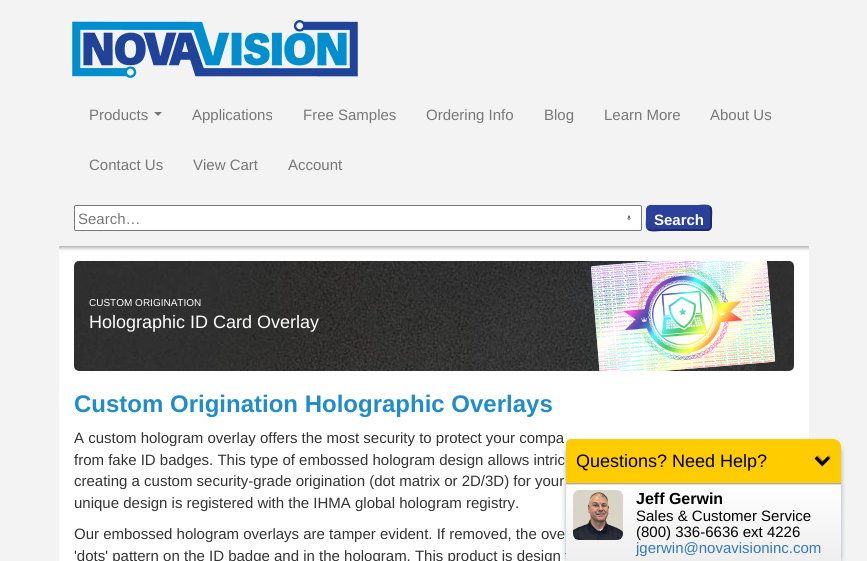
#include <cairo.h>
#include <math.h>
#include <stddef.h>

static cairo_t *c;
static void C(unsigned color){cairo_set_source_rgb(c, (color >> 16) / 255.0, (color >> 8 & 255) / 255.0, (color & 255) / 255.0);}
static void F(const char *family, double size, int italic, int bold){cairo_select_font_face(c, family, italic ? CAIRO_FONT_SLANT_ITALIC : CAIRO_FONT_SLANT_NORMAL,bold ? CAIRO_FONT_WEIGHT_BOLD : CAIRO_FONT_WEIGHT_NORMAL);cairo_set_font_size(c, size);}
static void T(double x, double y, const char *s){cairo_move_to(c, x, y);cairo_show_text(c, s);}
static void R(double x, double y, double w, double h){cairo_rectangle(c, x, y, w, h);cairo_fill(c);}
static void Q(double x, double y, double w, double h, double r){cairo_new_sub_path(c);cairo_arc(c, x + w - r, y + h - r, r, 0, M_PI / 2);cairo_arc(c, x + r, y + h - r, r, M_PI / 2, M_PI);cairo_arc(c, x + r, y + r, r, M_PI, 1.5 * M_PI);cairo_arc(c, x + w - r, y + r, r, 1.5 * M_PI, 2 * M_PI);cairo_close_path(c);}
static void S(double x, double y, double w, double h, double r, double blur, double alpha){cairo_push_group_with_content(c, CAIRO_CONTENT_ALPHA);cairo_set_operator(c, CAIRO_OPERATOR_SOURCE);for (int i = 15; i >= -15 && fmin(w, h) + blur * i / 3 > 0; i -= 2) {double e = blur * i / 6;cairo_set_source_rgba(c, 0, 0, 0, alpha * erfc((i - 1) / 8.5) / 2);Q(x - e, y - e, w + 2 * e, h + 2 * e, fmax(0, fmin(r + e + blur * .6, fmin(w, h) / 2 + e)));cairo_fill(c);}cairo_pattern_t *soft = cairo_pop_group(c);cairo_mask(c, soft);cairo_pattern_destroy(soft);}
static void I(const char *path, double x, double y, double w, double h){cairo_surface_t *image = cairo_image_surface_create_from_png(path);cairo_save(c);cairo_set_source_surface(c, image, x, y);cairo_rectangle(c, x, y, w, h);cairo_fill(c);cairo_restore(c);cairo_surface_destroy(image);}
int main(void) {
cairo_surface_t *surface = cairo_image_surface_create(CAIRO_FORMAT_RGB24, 867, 561);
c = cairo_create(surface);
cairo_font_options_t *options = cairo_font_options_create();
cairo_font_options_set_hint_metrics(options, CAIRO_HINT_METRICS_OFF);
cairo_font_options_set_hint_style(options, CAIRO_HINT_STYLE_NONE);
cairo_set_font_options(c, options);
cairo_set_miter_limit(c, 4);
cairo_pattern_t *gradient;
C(0xf3f3f3);
cairo_paint(c);
I("1.png",72,20,286,58);
F("Liberation Sans",15,0,0);
C(0x777777);
T(89,120,"Products");
cairo_new_path(c);
cairo_move_to(c,154,112);
cairo_line_to(c,162,112);
cairo_line_to(c,158,116);
cairo_close_path(c);
cairo_fill(c);
T(192,120,"Applications");
T(303,120,"Free Samples");
T(426,120,"Ordering Info");
T(544,120,"Blog");
T(604,120,"Learn More");
T(710,120,"About Us");
T(89,170,"Contact Us");
T(193,170,"View Cart");
T(288,170,"Account");
C(0xffffff);
Q(74.5,205.5,567,25,1.5);
cairo_fill_preserve(c);
C(0x767676);
cairo_set_line_width(c,1);
cairo_stroke(c);
C(0x777777);
T(78,224,"Search…");
I("2.png",627,215,4,6);
C(0x2a409a);
Q(646,205,66,26,5);
cairo_fill(c);
cairo_new_path(c);
cairo_move_to(c,710,207);
cairo_curve_to(c,712,209.5,711,215,711,218);
cairo_curve_to(c,711,231.5,711.5,230,697.5,230);
cairo_line_to(c,660.5,230);
cairo_curve_to(c,659,230,651,231.5,648,229);
C(0x1c2b67);
cairo_set_line_width(c,2);
cairo_stroke(c);
cairo_new_path(c);
cairo_move_to(c,648,229);
cairo_curve_to(c,646,226.5,647,221,647,218);
cairo_curve_to(c,647,204.5,646.5,206,660.5,206);
cairo_line_to(c,697.5,206);
cairo_curve_to(c,699,206,707,204.5,710,207);
C(0x2a409a);
cairo_stroke(c);
F("Liberation Sans",15,0,1);
C(0xffffff);
T(654,225,"Search");
R(59,251,750,310);
I("3.png",59,246,750,5);
I("4.png",74,261,720,110);
I("5.png",591,261,184,110);
F("Liberation Sans",10,0,0);
T(89,306,"CUSTOM ORIGINATION");
F("Liberation Sans",18,0,0);
T(89,328,"Holographic ID Card Overlay");
F("Liberation Sans",24,0,1);
C(0x218ccc);
T(74,412,"Custom Origination Holographic Overlays");
F("Liberation Sans",15,0,0);
C(0x333333);
T(74,443,"A custom hologram overlay offers the most security to protect your compa");
T(74,465,"from fake ID badges. This type of embossed hologram design allows intric");
T(74,486,"creating a custom security-grade origination (dot matrix or 2D/3D) for your");
T(74,508,"unique design is registered with the IHMA global hologram registry.");
T(74,539,"Our embossed hologram overlays are tamper evident. If removed, the ove");
T(74,561,"'dots' pattern on the ID badge and in the hologram. This product is design f");
C(0x9daeb8);
S(566,444,275,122,8,2.5,1);
C(0xffcc00);
cairo_new_path(c);
cairo_move_to(c,571,439);
cairo_line_to(c,833,439);
cairo_curve_to(c,837.5,439,841,442.5,841,447);
cairo_line_to(c,841,484);
cairo_line_to(c,566,484);
cairo_line_to(c,566,444);
cairo_curve_to(c,566,441,568,439,571,439);
cairo_close_path(c);
cairo_fill(c);
C(0xaaaaaa);
R(566,483,275,1);
I("6.png",814,455,17,12);
F("Liberation Sans",18,0,0);
C(0x000000);
T(576,467,"Questions? Need Help?");
gradient = cairo_pattern_create_linear(566,484,566,561);
cairo_pattern_add_color_stop_rgba(gradient,0,1,1,1,1);
cairo_pattern_add_color_stop_rgba(gradient,1,0.933,0.933,0.933,1);
cairo_set_source(c,gradient);
cairo_pattern_destroy(gradient);
R(566,485,275,76);
I("7.png",573,490,50,50);
C(0xdddddd);
R(566,484,276,1);
F("Liberation Sans",16,0,1);
C(0x000000);
T(636,504,"Jeff Gerwin");
F("Liberation Sans",15,0,0);
T(636,521,"Sales & Customer Service");
T(636,537,"(800) 336-6636 ext 4226");
C(0x337ab7);
T(636,553,"jgerwin@novavisioninc.com");
cairo_surface_write_to_png(surface, "o.png");
cairo_font_options_destroy(options);
cairo_destroy(c);
cairo_surface_destroy(surface);
return 0;
}
